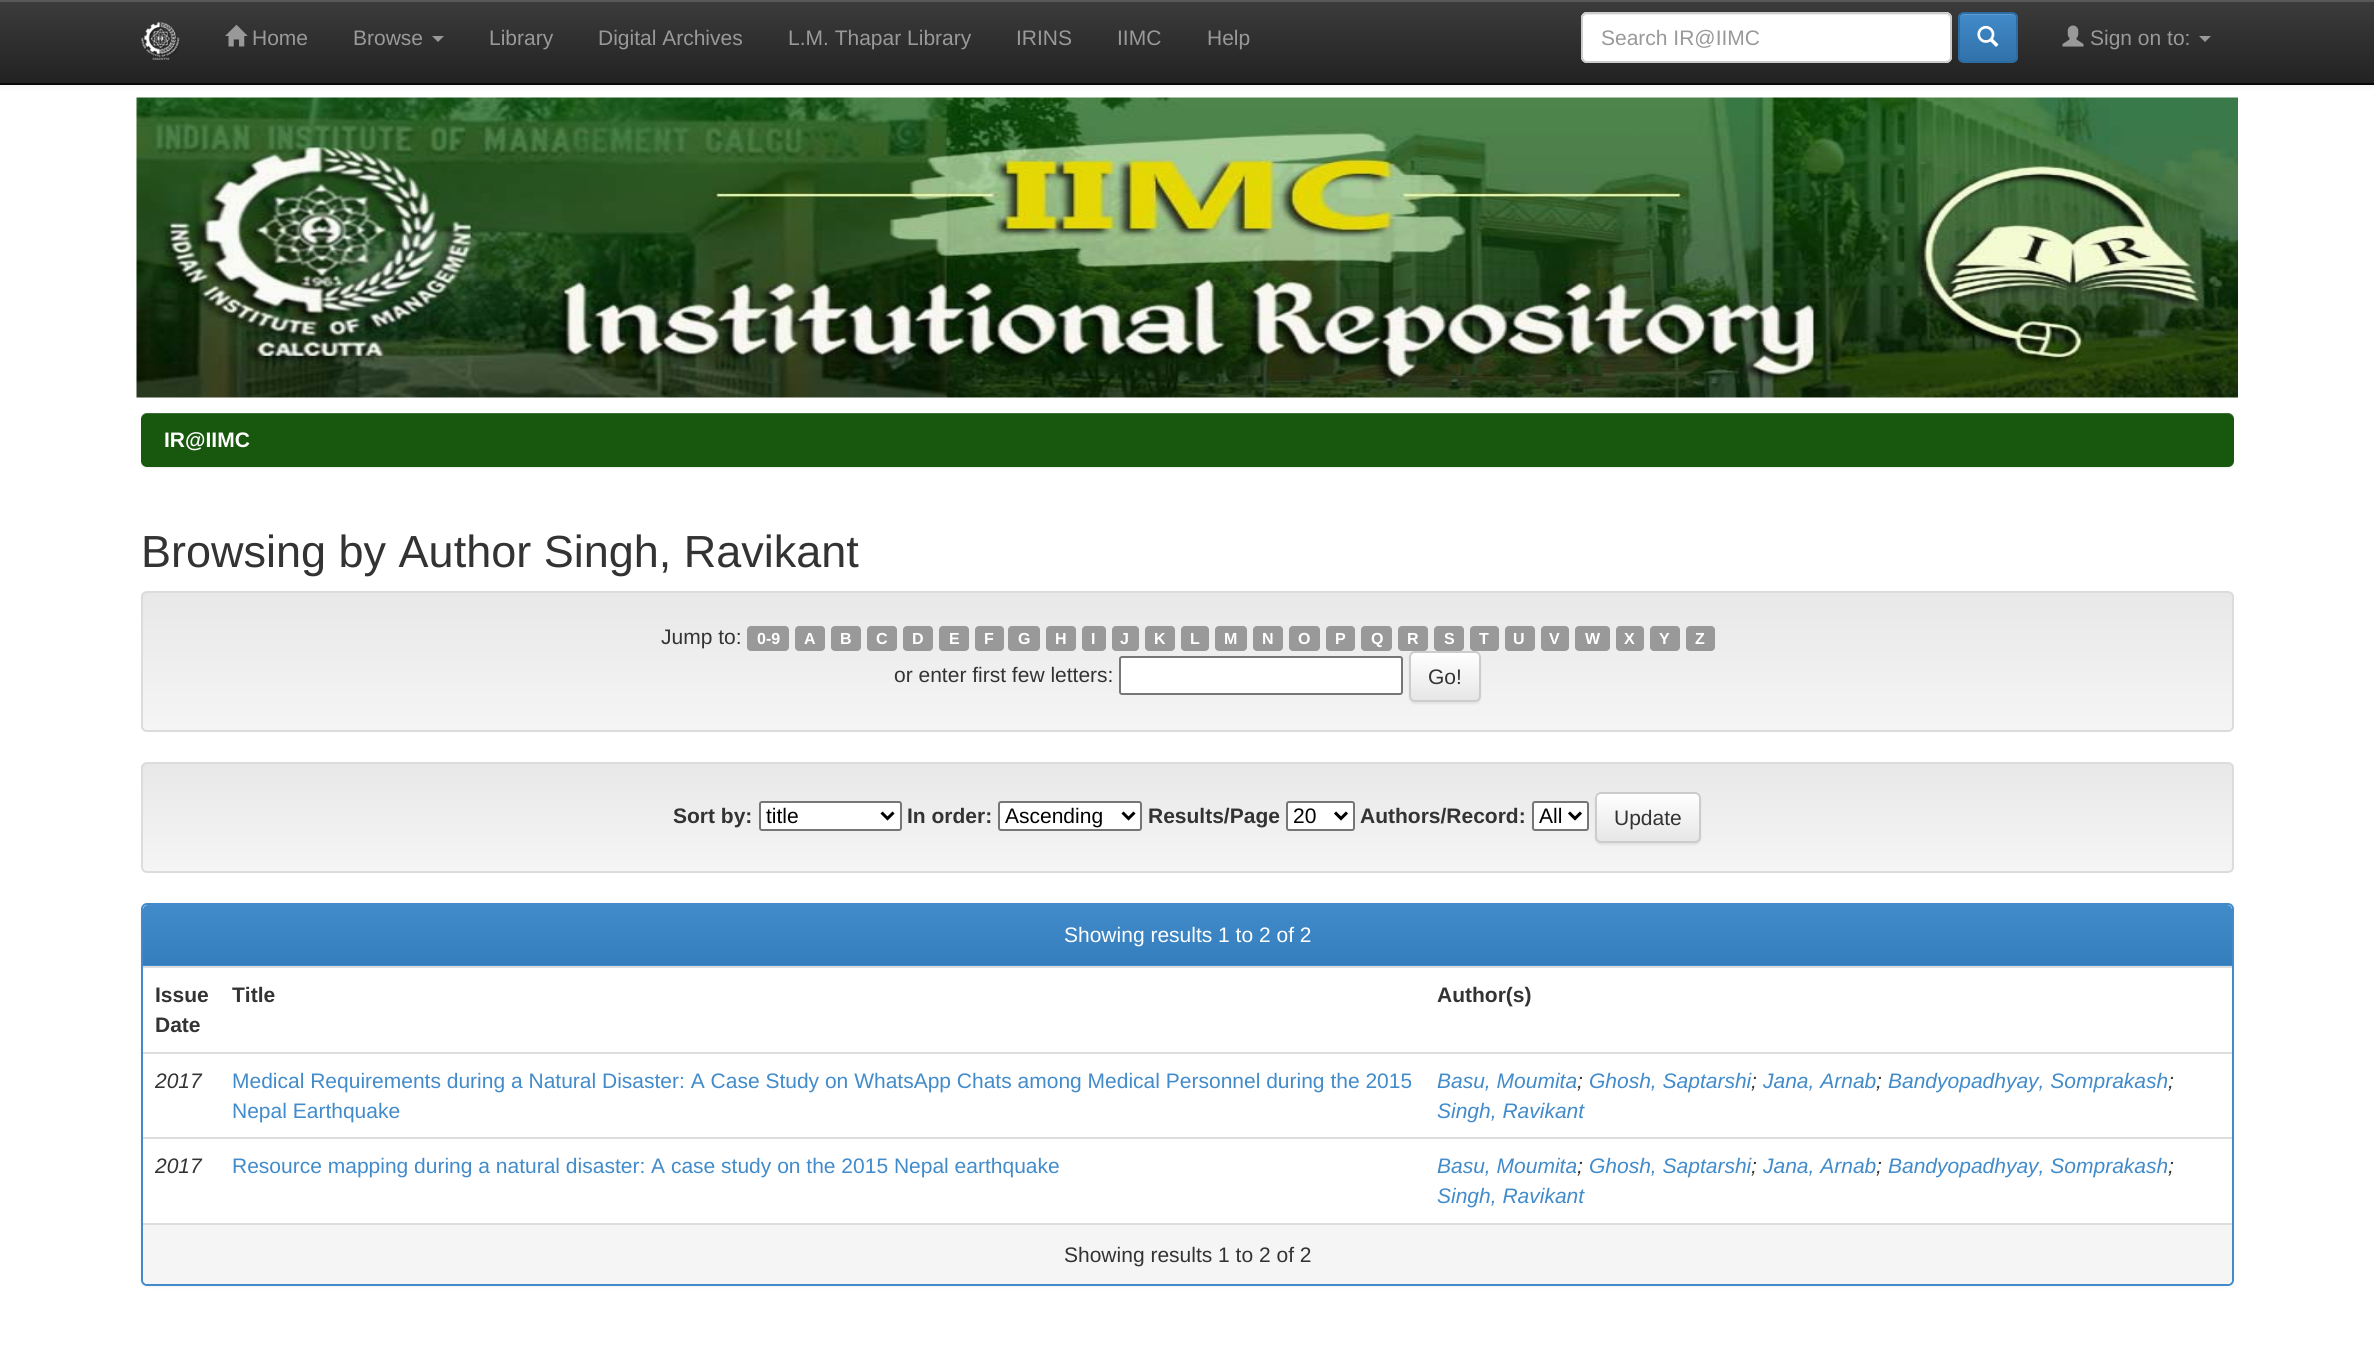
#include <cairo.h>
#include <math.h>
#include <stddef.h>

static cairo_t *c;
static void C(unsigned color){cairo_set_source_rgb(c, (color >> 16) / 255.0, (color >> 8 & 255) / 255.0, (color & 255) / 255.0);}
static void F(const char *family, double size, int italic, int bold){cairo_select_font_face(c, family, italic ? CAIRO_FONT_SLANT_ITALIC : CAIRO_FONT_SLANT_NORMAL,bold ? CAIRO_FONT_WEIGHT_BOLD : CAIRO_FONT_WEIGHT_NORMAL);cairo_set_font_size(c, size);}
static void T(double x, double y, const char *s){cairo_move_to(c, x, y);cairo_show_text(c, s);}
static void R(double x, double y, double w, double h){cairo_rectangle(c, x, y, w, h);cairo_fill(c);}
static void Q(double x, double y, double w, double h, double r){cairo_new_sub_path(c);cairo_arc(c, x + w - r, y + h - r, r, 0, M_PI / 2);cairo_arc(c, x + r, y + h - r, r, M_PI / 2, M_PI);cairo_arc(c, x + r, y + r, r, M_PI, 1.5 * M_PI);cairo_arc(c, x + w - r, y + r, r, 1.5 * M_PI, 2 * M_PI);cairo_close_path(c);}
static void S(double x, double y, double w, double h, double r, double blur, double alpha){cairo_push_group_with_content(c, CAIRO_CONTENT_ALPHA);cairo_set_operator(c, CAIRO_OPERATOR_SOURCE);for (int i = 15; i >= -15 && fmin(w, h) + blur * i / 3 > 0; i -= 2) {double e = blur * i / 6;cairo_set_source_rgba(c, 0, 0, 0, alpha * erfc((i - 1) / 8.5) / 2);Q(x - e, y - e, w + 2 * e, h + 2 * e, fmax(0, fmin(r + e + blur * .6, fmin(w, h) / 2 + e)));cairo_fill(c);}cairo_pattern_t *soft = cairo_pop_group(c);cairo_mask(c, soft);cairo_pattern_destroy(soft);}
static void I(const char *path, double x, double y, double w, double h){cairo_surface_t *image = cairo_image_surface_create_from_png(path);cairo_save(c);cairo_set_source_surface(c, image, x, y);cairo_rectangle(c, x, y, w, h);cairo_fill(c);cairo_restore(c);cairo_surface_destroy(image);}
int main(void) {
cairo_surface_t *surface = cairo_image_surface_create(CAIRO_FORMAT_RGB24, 2374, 1353);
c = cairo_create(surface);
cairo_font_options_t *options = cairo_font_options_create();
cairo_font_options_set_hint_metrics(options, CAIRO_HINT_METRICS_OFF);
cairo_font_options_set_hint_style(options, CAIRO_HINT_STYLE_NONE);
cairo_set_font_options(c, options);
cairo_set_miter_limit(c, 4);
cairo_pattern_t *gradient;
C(0xffffff);
cairo_paint(c);
I("5.png",136,97,2102,301);
C(0x000000);
S(0,2,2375,84,0,4,.07);
gradient = cairo_pattern_create_linear(1187,0,1187,83);
cairo_pattern_add_color_stop_rgba(gradient,0,0.235,0.235,0.235,1);
cairo_pattern_add_color_stop_rgba(gradient,1,0.133,0.133,0.133,1);
cairo_set_source(c,gradient);
cairo_pattern_destroy(gradient);
R(0,2,2374,81);
C(0x595959);
R(0,0,2374,2);
C(0x080808);
R(0,83,2374,2);
I("1.png",141,22,39,38);
I("2.png",225,24,23,23);
F("Liberation Sans",21,0,0);
C(0x999999);
T(252,45,"Home");
T(353,45,"Browse");
cairo_new_path(c);
cairo_move_to(c,432,36);
cairo_line_to(c,444,36);
cairo_line_to(c,438,42);
cairo_close_path(c);
cairo_fill(c);
T(489,45,"Library");
T(598,45,"Digital Archives");
T(788,45,"L.M. Thapar Library");
T(1016,45,"IRINS");
T(1117,45,"IIMC");
T(1207,45,"Help");
C(0xffffff);
Q(1581,12,371,51,6);
cairo_fill(c);
C(0xececec);
cairo_new_path(c);
cairo_move_to(c,1587,15);
cairo_line_to(c,1946,15);
cairo_curve_to(c,1948,15,1950,17,1950,20);
cairo_line_to(c,1950,19);
cairo_curve_to(c,1950,16,1948,14,1945,14);
cairo_line_to(c,1588,14);
cairo_curve_to(c,1586,14,1585,15,1584,16);
cairo_close_path(c);
cairo_fill(c);
Q(1582,13,369,49,5);
C(0xcccccc);
cairo_stroke(c);
C(0x999999);
T(1601,45,"Search IR@IIMC");
cairo_save(c);
Q(1958,12,60,51,6);
cairo_clip(c);
gradient = cairo_pattern_create_linear(1988,13,1988,62);
cairo_pattern_add_color_stop_rgba(gradient,0,0.259,0.545,0.792,1);
cairo_pattern_add_color_stop_rgba(gradient,1,0.188,0.443,0.663,1);
cairo_set_source(c,gradient);
cairo_pattern_destroy(gradient);
R(1958,14,60,48);
cairo_restore(c);
C(0x5e9cd1);
cairo_new_path(c);
cairo_move_to(c,1964,15);
cairo_line_to(c,2012,15);
cairo_curve_to(c,2014,15,2016,17,2016,20);
cairo_curve_to(c,2016,12,2009,14,2003,14);
cairo_line_to(c,1972,14);
cairo_curve_to(c,1966,14,1959,12,1959,20);
cairo_curve_to(c,1959,17,1961,15,1964,15);
cairo_close_path(c);
cairo_fill(c);
Q(1959,13,58,49,5);
C(0x2d6ca2);
cairo_stroke(c);
I("3.png",1977,25,22,22);
I("4.png",2062,25,22,22);
C(0x999999);
T(2090,45,"Sign on to:");
cairo_new_path(c);
cairo_move_to(c,2199,36);
cairo_line_to(c,2211,36);
cairo_line_to(c,2205,42);
cairo_close_path(c);
cairo_fill(c);
C(0x000000);
S(141,414,2093,54,6,1,.07);
C(0x18570e);
Q(141,413,2093,54,6);
cairo_fill(c);
cairo_set_source_rgba(c,1,1,1,0.15);
cairo_new_path(c);
cairo_move_to(c,147,414);
cairo_line_to(c,2228,414);
cairo_curve_to(c,2231,414,2234,417,2234,420);
cairo_curve_to(c,2234,416,2232,413,2228,413);
cairo_line_to(c,147,413);
cairo_curve_to(c,143,413,141,416,141,420);
cairo_curve_to(c,141,417,144,414,147,414);
cairo_close_path(c);
cairo_fill(c);
F("Liberation Sans",21,0,1);
C(0xffffff);
T(164,447,"IR@IIMC");
F("Liberation Sans",45,0,0);
C(0x333333);
T(141,567,"Browsing by Author Singh, Ravikant");
cairo_save(c);
Q(141,591,2093,141,6);
cairo_clip(c);
gradient = cairo_pattern_create_linear(1187,592,1187,731);
cairo_pattern_add_color_stop_rgba(gradient,0,0.91,0.91,0.91,1);
cairo_pattern_add_color_stop_rgba(gradient,1,0.961,0.961,0.961,1);
cairo_set_source(c,gradient);
cairo_pattern_destroy(gradient);
R(141,593,2093,138);
cairo_restore(c);
Q(142,592,2091,139,5);
C(0xdcdcdc);
cairo_stroke(c);
F("Liberation Sans",21,0,0);
C(0x333333);
T(661,644,"Jump to:");
C(0x999999);
Q(747,626,42,25,4);
cairo_fill(c);
F("Liberation Sans",16,0,1);
C(0xffffff);
T(757,644,"0-9");
C(0x999999);
Q(795,626,30,25,4);
cairo_fill(c);
C(0xffffff);
T(804,644,"A");
C(0x999999);
Q(831,626,30,25,4);
cairo_fill(c);
C(0xffffff);
T(840,644,"B");
C(0x999999);
Q(867,626,30,25,4);
cairo_fill(c);
C(0xffffff);
T(876,644,"C");
C(0x999999);
Q(903,626,30,25,4);
cairo_fill(c);
C(0xffffff);
T(912,644,"D");
C(0x999999);
Q(939,626,30,25,4);
cairo_fill(c);
C(0xffffff);
T(949,644,"E");
C(0x999999);
Q(975,626,29,25,4);
cairo_fill(c);
C(0xffffff);
T(984,644,"F");
C(0x999999);
Q(1008,626,32,25,4);
cairo_fill(c);
C(0xffffff);
T(1018,644,"G");
C(0x999999);
Q(1046,626,30,25,4);
cairo_fill(c);
C(0xffffff);
T(1055,644,"H");
C(0x999999);
Q(1082,626,24,25,4);
cairo_fill(c);
C(0xffffff);
T(1091,644,"I");
C(0x999999);
Q(1112,626,27,25,4);
cairo_fill(c);
C(0xffffff);
T(1120,644,"J");
C(0x999999);
Q(1145,626,30,25,4);
cairo_fill(c);
C(0xffffff);
T(1154,644,"K");
C(0x999999);
Q(1181,626,28,25,4);
cairo_fill(c);
C(0xffffff);
T(1190,644,"L");
C(0x999999);
Q(1215,626,32,25,4);
cairo_fill(c);
C(0xffffff);
T(1224,644,"M");
C(0x999999);
Q(1253,626,30,25,4);
cairo_fill(c);
C(0xffffff);
T(1262,644,"N");
C(0x999999);
Q(1289,626,31,25,4);
cairo_fill(c);
C(0xffffff);
T(1298,644,"O");
C(0x999999);
Q(1326,626,29,25,4);
cairo_fill(c);
C(0xffffff);
T(1335,644,"P");
C(0x999999);
Q(1361,626,31,25,4);
cairo_fill(c);
C(0xffffff);
T(1371,644,"Q");
C(0x999999);
Q(1398,626,30,25,4);
cairo_fill(c);
C(0xffffff);
T(1407,644,"R");
C(0x999999);
Q(1434,626,30,25,4);
cairo_fill(c);
C(0xffffff);
T(1444,644,"S");
C(0x999999);
Q(1470,626,29,25,4);
cairo_fill(c);
C(0xffffff);
T(1479,644,"T");
C(0x999999);
Q(1505,626,30,25,4);
cairo_fill(c);
C(0xffffff);
T(1513,644,"U");
C(0x999999);
Q(1541,626,28,25,4);
cairo_fill(c);
C(0xffffff);
T(1549,644,"V");
C(0x999999);
Q(1575,626,35,25,4);
cairo_fill(c);
C(0xffffff);
T(1585,644,"W");
C(0x999999);
Q(1616,626,28,25,4);
cairo_fill(c);
C(0xffffff);
T(1624,644,"X");
C(0x999999);
Q(1650,626,30,25,4);
cairo_fill(c);
C(0xffffff);
T(1659,644,"Y");
C(0x999999);
Q(1686,626,29,25,4);
cairo_fill(c);
C(0xffffff);
T(1695,644,"Z");
F("Liberation Sans",21,0,0);
C(0x333333);
T(894,682,"or enter first few letters:");
C(0xffffff);
Q(1120,657,282,37,2);
cairo_fill_preserve(c);
C(0x767676);
cairo_stroke(c);
C(0x000000);
S(1409,653,72,51,6,1,.07);
cairo_save(c);
Q(1409,651,72,51,6);
cairo_clip(c);
gradient = cairo_pattern_create_linear(1445,653,1445,701);
cairo_pattern_add_color_stop_rgba(gradient,0,1,1,1,1);
cairo_pattern_add_color_stop_rgba(gradient,1,0.902,0.902,0.902,1);
cairo_set_source(c,gradient);
cairo_pattern_destroy(gradient);
R(1409,653,72,48);
cairo_restore(c);
Q(1410,652,70,49,5);
C(0xcccccc);
cairo_stroke(c);
C(0x333333);
T(1428,684,"Go!");
cairo_save(c);
Q(141,762,2093,111,6);
cairo_clip(c);
gradient = cairo_pattern_create_linear(1187,763,1187,872);
cairo_pattern_add_color_stop_rgba(gradient,0,0.91,0.91,0.91,1);
cairo_pattern_add_color_stop_rgba(gradient,1,0.961,0.961,0.961,1);
cairo_set_source(c,gradient);
cairo_pattern_destroy(gradient);
R(141,764,2093,108);
cairo_restore(c);
Q(142,763,2091,109,5);
C(0xdcdcdc);
cairo_stroke(c);
F("Liberation Sans",21,0,1);
C(0x333333);
T(673,823,"Sort by:");
C(0xffffff);
Q(760,802,141,28,2);
cairo_fill_preserve(c);
C(0x767676);
cairo_stroke(c);
cairo_new_path(c);
cairo_move_to(c,881.5,812.5);
cairo_line_to(c,887.5,818.5);
cairo_line_to(c,893.5,812.5);
C(0x000000);
cairo_set_line_width(c,3);
cairo_stroke(c);
F("Liberation Sans",21,0,0);
T(766,823,"title");
F("Liberation Sans",21,0,1);
C(0x333333);
T(907,823,"In order:");
C(0xffffff);
Q(999,802,142,28,2);
cairo_fill_preserve(c);
C(0x767676);
cairo_set_line_width(c,2);
cairo_stroke(c);
cairo_new_path(c);
cairo_move_to(c,1122.5,812.5);
cairo_line_to(c,1128.5,818.5);
cairo_line_to(c,1134.5,812.5);
C(0x000000);
cairo_set_line_width(c,3);
cairo_stroke(c);
F("Liberation Sans",21,0,0);
T(1005,823,"Ascending");
F("Liberation Sans",21,0,1);
C(0x333333);
T(1148,823,"Results/Page");
C(0xffffff);
Q(1287,802,67,28,2);
cairo_fill_preserve(c);
C(0x767676);
cairo_set_line_width(c,2);
cairo_stroke(c);
cairo_new_path(c);
cairo_move_to(c,1335,812.5);
cairo_line_to(c,1341,818.5);
cairo_line_to(c,1347,812.5);
C(0x000000);
cairo_set_line_width(c,3);
cairo_stroke(c);
F("Liberation Sans",21,0,0);
T(1293,823,"20");
F("Liberation Sans",21,0,1);
C(0x333333);
T(1360,823,"Authors/Record:");
C(0xffffff);
Q(1533,802,55,28,2);
cairo_fill_preserve(c);
C(0x767676);
cairo_set_line_width(c,2);
cairo_stroke(c);
cairo_new_path(c);
cairo_move_to(c,1569,812.5);
cairo_line_to(c,1575,818.5);
cairo_line_to(c,1581,812.5);
C(0x000000);
cairo_set_line_width(c,3);
cairo_stroke(c);
F("Liberation Sans",21,0,0);
T(1539,823,"All");
C(0x000000);
S(1595,794,106,51,6,1,.07);
cairo_save(c);
Q(1595,792,106,51,6);
cairo_clip(c);
gradient = cairo_pattern_create_linear(1648,794,1648,842);
cairo_pattern_add_color_stop_rgba(gradient,0,1,1,1,1);
cairo_pattern_add_color_stop_rgba(gradient,1,0.902,0.902,0.902,1);
cairo_set_source(c,gradient);
cairo_pattern_destroy(gradient);
R(1595,794,106,48);
cairo_restore(c);
Q(1596,793,104,49,5);
C(0xcccccc);
cairo_set_line_width(c,2);
cairo_stroke(c);
C(0x333333);
T(1614,825,"Update");
C(0x000000);
S(141,905,2093,382,6,1.5,.05);
C(0xffffff);
Q(142,904,2091,381,5);
cairo_fill_preserve(c);
C(0x428bca);
cairo_stroke(c);
gradient = cairo_pattern_create_linear(1187,904,1187,965);
cairo_pattern_add_color_stop_rgba(gradient,0,0.259,0.545,0.792,1);
cairo_pattern_add_color_stop_rgba(gradient,1,0.208,0.494,0.741,1);
cairo_set_source(c,gradient);
cairo_pattern_destroy(gradient);
cairo_new_path(c);
cairo_move_to(c,148,905);
cairo_line_to(c,2227,905);
cairo_curve_to(c,2230,905,2232,907,2232,910);
cairo_line_to(c,2232,965);
cairo_line_to(c,143,965);
cairo_line_to(c,143,910);
cairo_curve_to(c,143,907,145,905,148,905);
cairo_close_path(c);
cairo_fill(c);
C(0x428bca);
R(143,965,2089,1);
C(0xffffff);
T(1064,942,"Showing results 1 to 2 of 2");
F("Liberation Sans",21,0,1);
C(0x333333);
T(155,1002,"Issue");
T(155,1032,"Date");
T(232,1002,"Title");
C(0xdddddd);
R(143,966,2089,2);
C(0x333333);
T(1437,1002,"Author(s)");
F("Liberation Sans",21,1,0);
T(155,1088,"2017");
F("Liberation Sans",21,0,0);
C(0x428bca);
T(232,1088,"Medical Requirements during a Natural Disaster: A Case Study on WhatsApp Chats among Medical Personnel during the 2015");
T(232,1118,"Nepal Earthquake");
C(0xdddddd);
R(143,1052,2089,2);
F("Liberation Sans",21,1,0);
C(0x428bca);
T(1437,1088,"Basu, Moumita");
C(0x333333);
T(1577,1088,";");
C(0x428bca);
T(1589,1088,"Ghosh, Saptarshi");
C(0x333333);
T(1751,1088,";");
C(0x428bca);
T(1763,1088,"Jana, Arnab");
C(0x333333);
T(1876,1088,";");
C(0x428bca);
T(1888,1088,"Bandyopadhyay, Somprakash");
C(0x333333);
T(2168,1088,";");
C(0x428bca);
T(1437,1118,"Singh, Ravikant");
C(0x333333);
T(155,1173,"2017");
F("Liberation Sans",21,0,0);
C(0x428bca);
T(232,1173,"Resource mapping during a natural disaster: A case study on the 2015 Nepal earthquake");
C(0xdddddd);
R(143,1137,2089,2);
F("Liberation Sans",21,1,0);
C(0x428bca);
T(1437,1173,"Basu, Moumita");
C(0x333333);
T(1577,1173,";");
C(0x428bca);
T(1589,1173,"Ghosh, Saptarshi");
C(0x333333);
T(1751,1173,";");
C(0x428bca);
T(1763,1173,"Jana, Arnab");
C(0x333333);
T(1876,1173,";");
C(0x428bca);
T(1888,1173,"Bandyopadhyay, Somprakash");
C(0x333333);
T(2168,1173,";");
C(0x428bca);
T(1437,1203,"Singh, Ravikant");
C(0xf5f5f5);
cairo_new_path(c);
cairo_move_to(c,143,1223);
cairo_line_to(c,2232,1223);
cairo_line_to(c,2232,1279);
cairo_curve_to(c,2232,1282,2230,1284,2227,1284);
cairo_line_to(c,148,1284);
cairo_curve_to(c,145,1284,143,1282,143,1279);
cairo_close_path(c);
cairo_fill(c);
C(0xdddddd);
R(143,1223,2089,2);
F("Liberation Sans",21,0,0);
C(0x333333);
T(1064,1262,"Showing results 1 to 2 of 2");
cairo_surface_write_to_png(surface, "o.png");
cairo_font_options_destroy(options);
cairo_destroy(c);
cairo_surface_destroy(surface);
return 0;
}
